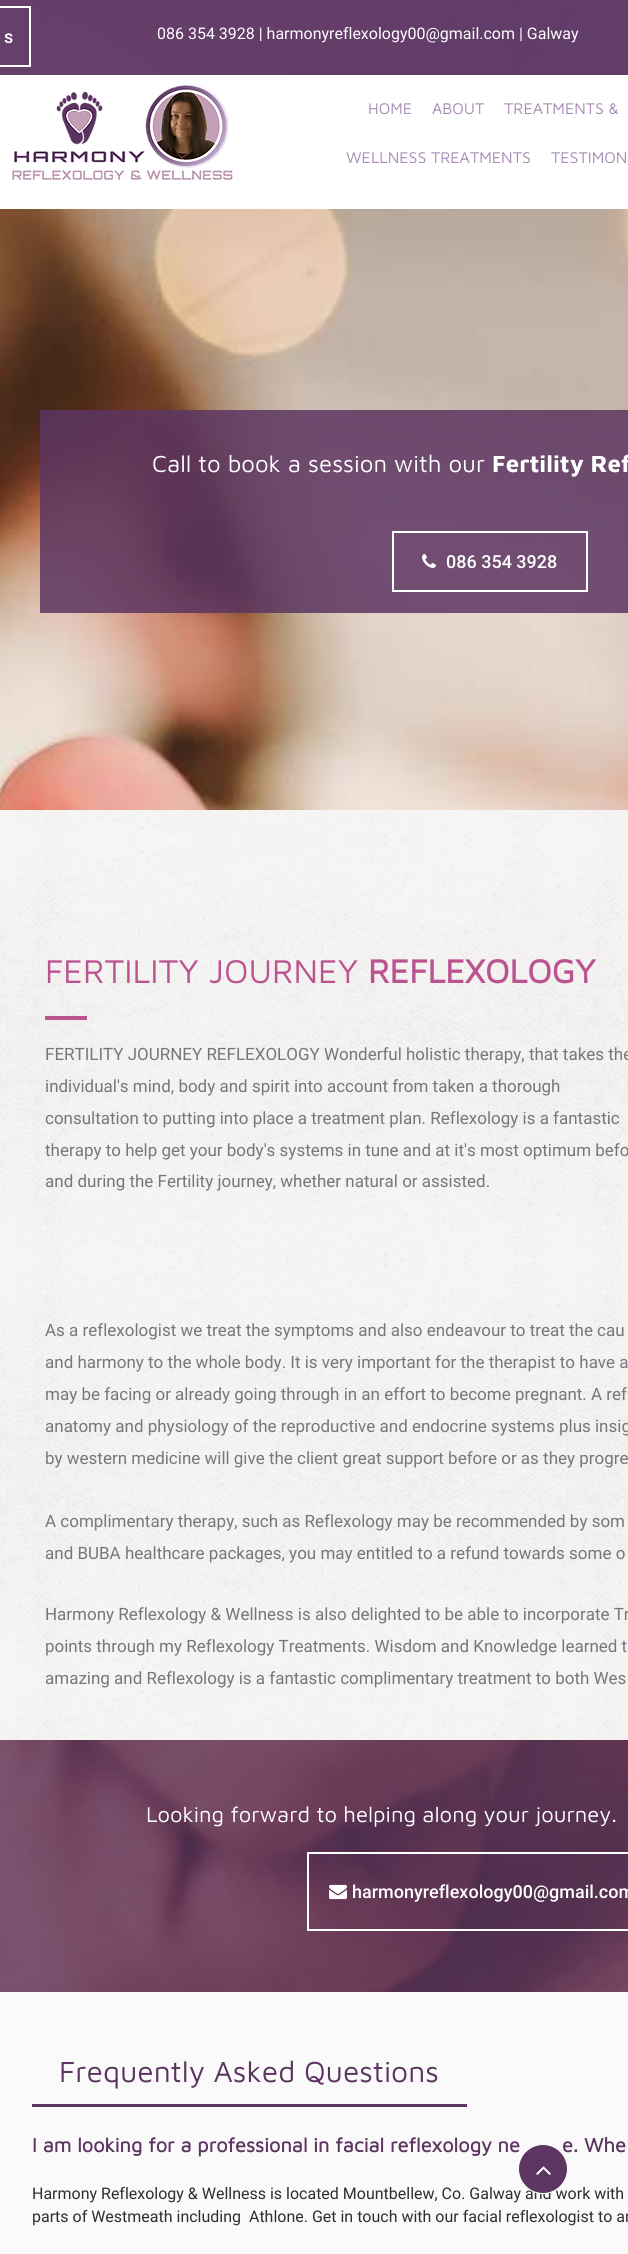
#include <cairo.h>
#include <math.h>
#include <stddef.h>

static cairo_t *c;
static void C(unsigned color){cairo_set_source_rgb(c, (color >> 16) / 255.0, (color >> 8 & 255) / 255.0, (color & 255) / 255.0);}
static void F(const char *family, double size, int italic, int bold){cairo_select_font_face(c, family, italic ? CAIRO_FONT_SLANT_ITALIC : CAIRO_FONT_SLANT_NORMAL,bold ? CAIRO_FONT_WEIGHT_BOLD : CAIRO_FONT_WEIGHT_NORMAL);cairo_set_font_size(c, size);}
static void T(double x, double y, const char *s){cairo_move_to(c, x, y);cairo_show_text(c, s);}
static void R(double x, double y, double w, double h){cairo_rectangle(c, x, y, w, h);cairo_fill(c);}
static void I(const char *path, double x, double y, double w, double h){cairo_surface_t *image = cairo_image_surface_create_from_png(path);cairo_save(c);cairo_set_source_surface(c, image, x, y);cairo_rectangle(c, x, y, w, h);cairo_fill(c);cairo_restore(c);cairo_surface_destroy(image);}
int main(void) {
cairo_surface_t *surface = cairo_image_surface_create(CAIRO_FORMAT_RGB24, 628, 2254);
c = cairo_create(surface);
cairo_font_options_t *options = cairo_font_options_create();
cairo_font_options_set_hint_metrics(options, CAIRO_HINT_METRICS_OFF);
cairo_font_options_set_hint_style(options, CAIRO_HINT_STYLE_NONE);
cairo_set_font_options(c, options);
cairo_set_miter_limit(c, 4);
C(0xffffff);
cairo_paint(c);
I("1.png",0,0,628,75);
cairo_rectangle(c,-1,7,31,59);
C(0xffffff);
cairo_stroke(c);
F("Roboto Medium",18,0,0);
T(4,43,"s");
F("Roboto",16,0,0);
T(157,39,"086 354 3928 | harmonyreflexology00@gmail.com | Galway");
I("2.png",12,83,221,97);
F("Maven Pro",16,0,0);
C(0xa688b2);
T(368,114,"HOME");
T(432,114,"ABOUT");
T(504,114,"TREATMENTS &");
T(346,163,"WELLNESS TREATMENTS");
T(551,163,"TESTIMON");
I("3.png",0,209,628,601);
cairo_set_source_rgba(c,0.361,0.208,0.38,0.85);
R(40,410,588,203);
F("Maven Pro",24,0,0);
C(0xffffff);
T(152,472,"Call to book a session with our");
F("Maven Pro",24,0,1);
T(492,472,"Fertility Ref");
cairo_rectangle(c,393,532,194,59);
cairo_stroke(c);
I("4.png",422,554,14,14);
F("Roboto Medium",18,0,0);
T(446,568,"086 354 3928");
I("8.png",0,810,628,930);
F("Maven Pro",34,0,0);
C(0xbb5390);
T(45,983,"FERTILITY JOURNEY");
F("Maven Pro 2",34,0,1);
T(368,983,"REFLEXOLOGY");
R(45,1016,42,4);
F("Roboto",17,0,0);
C(0x777777);
T(45,1060,"FERTILITY JOURNEY REFLEXOLOGY Wonderful holistic therapy, that takes the");
T(45,1092,"individual's mind, body and spirit into account from taken a thorough");
T(45,1124,"consultation to putting into place a treatment plan. Reflexology is a fantastic");
T(45,1156,"therapy to help get your body's systems in tune and at it's most optimum befo");
T(45,1187,"and during the Fertility journey, whether natural or assisted.");
T(45,1336,"As a reflexologist we treat the symptoms and also endeavour to treat the cau");
T(45,1368,"and harmony to the whole body. It is very important for the therapist to have a");
T(45,1400,"may be facing or already going through in an effort to become pregnant. A ref");
T(45,1432,"anatomy and physiology of the reproductive and endocrine systems plus insig");
T(45,1464,"by western medicine will give the client great support before or as they progre");
T(45,1527,"A complimentary therapy, such as Reflexology may be recommended by som");
T(45,1559,"and BUBA healthcare packages, you may entitled to a refund towards some o");
T(45,1620,"Harmony Reflexology & Wellness is also delighted to be able to incorporate Tr");
T(45,1652,"points through my Reflexology Treatments. Wisdom and Knowledge learned t");
T(45,1684,"amazing and Reflexology is a fantastic complimentary treatment to both Wes");
I("5.png",0,1740,628,252);
F("Maven Pro",22,0,0);
C(0xffffff);
T(146,1822,"Looking forward to helping along your journey.");
cairo_rectangle(c,308,1853,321,77);
cairo_stroke(c);
I("6.png",329,1884,18,16);
F("Roboto Medium",18,0,0);
T(352,1898,"harmonyreflexology00@gmail.com");
C(0xfafafa);
R(0,1992,628,262);
C(0x5c3561);
R(32,2104,435,3);
F("Maven Pro",30,0,0);
T(59,2082,"Frequently Asked Questions");
F("Maven Pro 2",20,0,1);
T(32,2152,"I am looking for a professional in facial reflexology ne");
T(562,2152,"e. Whe");
F("Roboto",16,0,0);
C(0x2f2e2e);
T(32,2199,"Harmony Reflexology & Wellness is located Mountbellew, Co. Galway and work with");
T(32,2222,"parts of Westmeath including  Athlone. Get in touch with our facial reflexologist to ar");
C(0x5c3561);
cairo_new_path(c);
cairo_arc(c,543,2169,24.5,0,2 * M_PI);
cairo_fill_preserve(c);
C(0xffffff);
cairo_set_line_width(c,1);
cairo_stroke(c);
I("7.png",536,2166,15,9);
cairo_surface_write_to_png(surface, "o.png");
cairo_font_options_destroy(options);
cairo_destroy(c);
cairo_surface_destroy(surface);
return 0;
}
